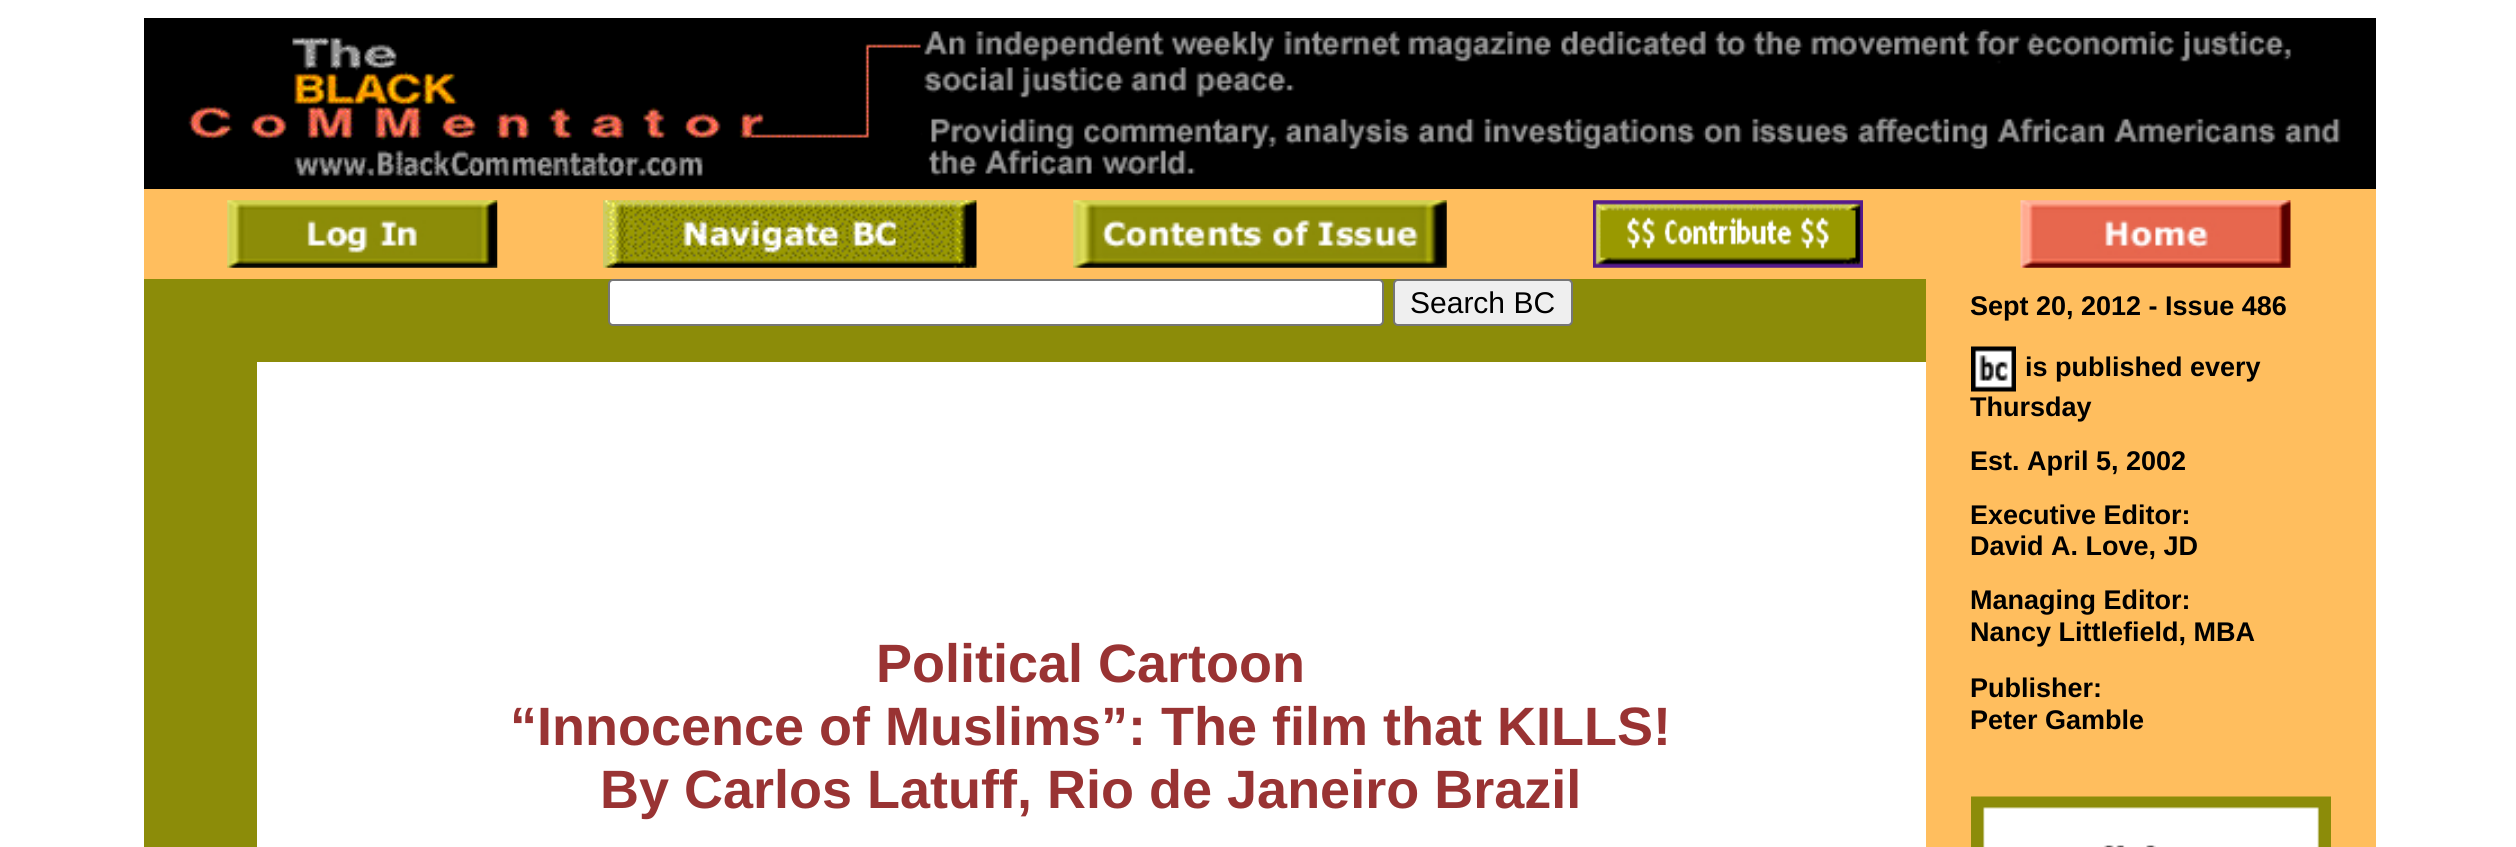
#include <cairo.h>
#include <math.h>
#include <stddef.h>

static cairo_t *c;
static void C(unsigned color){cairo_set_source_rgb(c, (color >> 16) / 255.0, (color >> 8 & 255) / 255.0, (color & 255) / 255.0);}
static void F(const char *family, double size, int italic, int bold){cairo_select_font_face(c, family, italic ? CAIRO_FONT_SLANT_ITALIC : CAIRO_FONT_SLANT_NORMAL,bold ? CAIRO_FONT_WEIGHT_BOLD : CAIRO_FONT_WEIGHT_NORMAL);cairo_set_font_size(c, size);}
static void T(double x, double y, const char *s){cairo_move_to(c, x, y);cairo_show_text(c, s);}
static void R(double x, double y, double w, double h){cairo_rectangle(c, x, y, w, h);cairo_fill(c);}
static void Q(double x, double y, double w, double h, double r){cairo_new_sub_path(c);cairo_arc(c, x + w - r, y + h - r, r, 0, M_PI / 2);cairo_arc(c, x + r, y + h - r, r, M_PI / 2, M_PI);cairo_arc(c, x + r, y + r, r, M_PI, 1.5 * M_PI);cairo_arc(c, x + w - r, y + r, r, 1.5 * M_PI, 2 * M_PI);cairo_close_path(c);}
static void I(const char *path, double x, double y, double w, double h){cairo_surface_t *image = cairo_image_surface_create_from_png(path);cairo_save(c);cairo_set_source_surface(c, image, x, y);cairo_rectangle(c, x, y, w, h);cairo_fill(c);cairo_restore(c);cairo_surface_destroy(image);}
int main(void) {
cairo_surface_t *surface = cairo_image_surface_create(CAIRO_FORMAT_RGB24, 2516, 847);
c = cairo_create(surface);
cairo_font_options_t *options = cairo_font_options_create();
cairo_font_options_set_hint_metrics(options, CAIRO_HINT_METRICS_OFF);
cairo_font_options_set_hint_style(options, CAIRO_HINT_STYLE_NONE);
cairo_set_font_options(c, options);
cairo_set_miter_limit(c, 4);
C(0xffffff);
cairo_paint(c);
C(0x000000);
R(144,18,2232,171);
I("1.png",188,29,2153,148);
C(0xffbe5e);
R(144,189,2232,90);
I("2.png",227,200,271,68);
I("3.png",603,200,374,68);
I("4.png",1073,200,374,68);
I("5.png",1593,200,270,68);
I("6.png",2020,200,271,68);
C(0x8c8c09);
R(144,279,113,568);
R(257,279,1669,83);
C(0xffffff);
Q(609,280,774,45,4);
cairo_fill_preserve(c);
C(0x767676);
cairo_stroke(c);
C(0xefefef);
Q(1394,280,178,45,4);
cairo_fill_preserve(c);
C(0x767676);
cairo_stroke(c);
F("Liberation Sans",30,0,0);
C(0x000000);
T(1410,313,"Search BC");
F("Liberation Sans",54,0,1);
C(0x993333);
T(876,682,"Political Cartoon");
T(510,745,"“Innocence of Muslims”: The film that KILLS!");
T(600,808,"By Carlos Latuff, Rio de Janeiro Brazil");
C(0xffbe5e);
R(1926,279,450,568);
F("Liberation Sans",27,0,1);
C(0x000000);
T(1970,315,"Sept 20, 2012 - Issue 486");
I("7.png",1971,346,45,46);
T(2025,376,"is published every");
T(1970,416,"Thursday");
T(1970,470,"Est. April 5, 2002");
T(1970,524,"Executive Editor:");
T(1970,555,"David A. Love, JD");
T(1970,609,"Managing Editor:");
T(1970,641,"Nancy Littlefield, MBA");
T(1970,697,"Publisher:");
T(1970,729,"Peter Gamble");
I("8.png",1971,796,360,51);
cairo_surface_write_to_png(surface, "o.png");
cairo_font_options_destroy(options);
cairo_destroy(c);
cairo_surface_destroy(surface);
return 0;
}
